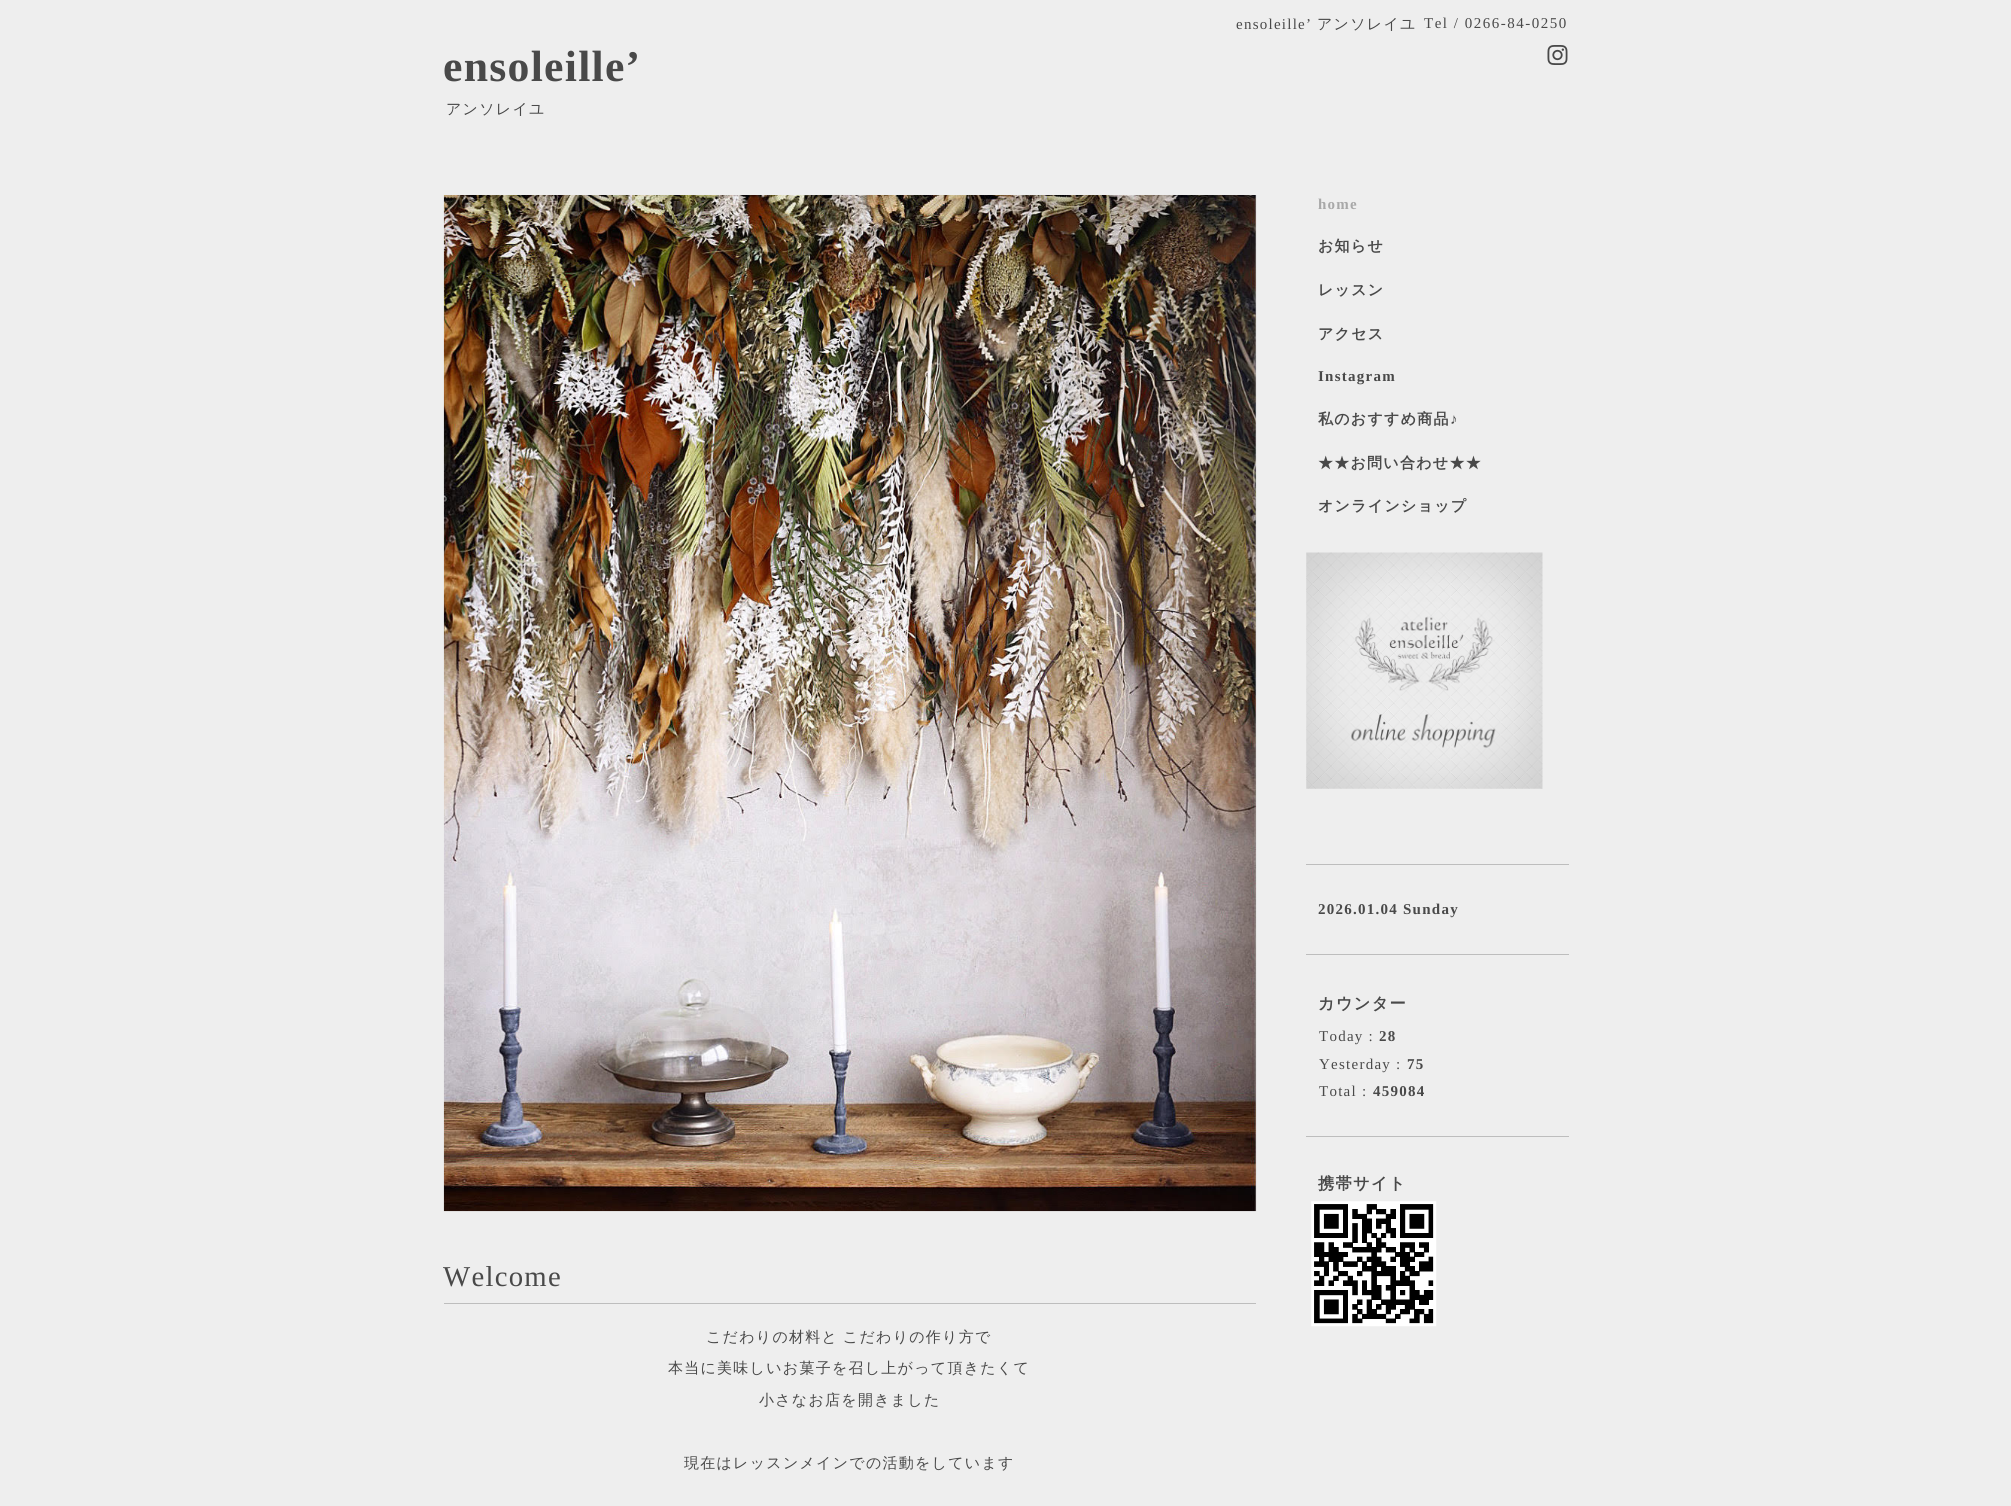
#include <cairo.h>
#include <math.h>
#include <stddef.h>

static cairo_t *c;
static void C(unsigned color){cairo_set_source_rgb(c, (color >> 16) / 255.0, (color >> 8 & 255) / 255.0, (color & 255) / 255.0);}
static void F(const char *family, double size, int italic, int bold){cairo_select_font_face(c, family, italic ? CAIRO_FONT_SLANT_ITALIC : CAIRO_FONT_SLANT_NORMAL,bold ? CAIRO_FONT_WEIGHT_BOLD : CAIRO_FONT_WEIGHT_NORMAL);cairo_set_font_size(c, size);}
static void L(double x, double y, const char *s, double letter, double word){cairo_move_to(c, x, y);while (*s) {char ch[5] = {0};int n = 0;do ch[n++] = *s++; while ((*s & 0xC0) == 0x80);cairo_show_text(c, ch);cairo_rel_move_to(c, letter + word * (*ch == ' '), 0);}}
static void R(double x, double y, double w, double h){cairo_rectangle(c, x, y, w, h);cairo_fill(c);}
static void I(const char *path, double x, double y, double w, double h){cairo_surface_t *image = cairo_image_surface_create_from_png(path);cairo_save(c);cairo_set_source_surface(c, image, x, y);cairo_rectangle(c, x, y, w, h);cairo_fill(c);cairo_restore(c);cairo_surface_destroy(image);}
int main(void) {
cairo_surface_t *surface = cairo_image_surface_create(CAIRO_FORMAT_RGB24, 2011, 1506);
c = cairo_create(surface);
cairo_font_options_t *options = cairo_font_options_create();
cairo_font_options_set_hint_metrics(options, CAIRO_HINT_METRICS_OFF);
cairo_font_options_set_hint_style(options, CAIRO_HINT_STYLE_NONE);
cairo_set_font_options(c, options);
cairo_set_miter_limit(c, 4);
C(0xeeeeee);
cairo_paint(c);
F("Liberation Serif",15,0,0);
C(0x494949);
L(1236,29,"ensoleille’",1.25,0);
F("WenQuanYi Zen Hei Medium",15,0,0);
L(1317,29,"アンソレイユ",1.25,0);
F("Liberation Serif",15,0,0);
L(1424,28,"Tel / 0266-84-0250",1.5,0);
I("1.png",1547,45,21,20);
F("Liberation Serif",43.75,0,1);
L(443,81,"ensoleille’",1.25,0);
F("WenQuanYi Zen Hei Medium",15,0,0);
L(446,114,"アンソレイユ",1.25,0);
F("Liberation Serif",15,0,1);
C(0xa8a8a8);
L(1318,209,"home",1.25,0);
F("WenQuanYi Zen Hei",15,0,1);
C(0x494949);
L(1318,251,"お知らせ",1.25,0);
L(1318,295,"レッスン",1.25,0);
L(1318,339,"アクセス",1.25,0);
F("Liberation Serif",15,0,1);
L(1318,381,"Instagram",1.25,0);
F("WenQuanYi Zen Hei",15,0,1);
L(1318,424,"私のおすすめ商品",1.25,0);
F("Liberation Serif",15,0,1);
L(1450,424,"♪",1.25,0);
F("WenQuanYi Zen Hei",15,0,1);
L(1318,468,"★★お問い合わせ★★",1.25,0);
L(1318,511,"オンラインショップ",1.25,0);
I("2.png",1306,552,237,237);
C(0xbdbdbd);
R(1306,864,263,1);
R(1306,954,263,1);
F("Liberation Serif",15,0,1);
C(0x494949);
L(1318,914,"2026.01.04 Sunday",1.25,0);
C(0xbdbdbd);
R(1306,1136,263,1);
F("WenQuanYi Zen Hei",16.25,0,1);
C(0x494949);
L(1318,1009,"カウンター",1.25,0);
F("Liberation Serif",15,0,0);
L(1319,1041,"Today :",1.25,0);
F("Liberation Serif",15,0,1);
L(1379,1041,"28",1.25,0);
F("Liberation Serif",15,0,0);
L(1319,1069,"Yesterday :",1.25,0);
F("Liberation Serif",15,0,1);
L(1407,1069,"75",1.25,0);
F("Liberation Serif",15,0,0);
L(1319,1096,"Total :",1.25,0);
F("Liberation Serif",15,0,1);
L(1373,1096,"459084",1.25,0);
F("WenQuanYi Zen Hei",16.25,0,1);
L(1318,1189,"携帯サイト",1.25,0);
I("3.png",1311,1201,126,126);
I("4.png",443,195,814,1017);
C(0xbdbdbd);
R(444,1303,812,1);
F("Liberation Serif",28.75,0,0);
C(0x494949);
L(443,1286,"Welcome",1.25,0);
F("WenQuanYi Zen Hei Medium",15,0,0);
L(706,1342,"こだわりの材料と こだわりの作り方で",1.25,-1);
L(668,1373,"本当に美味しいお菓子を召し上がって頂きたくて",1.25,0);
L(759,1405,"小さなお店を開きました",1.25,0);
L(684,1468,"現在はレッスンメインでの活動をしています",1.25,0);
cairo_surface_write_to_png(surface, "o.png");
cairo_font_options_destroy(options);
cairo_destroy(c);
cairo_surface_destroy(surface);
return 0;
}
